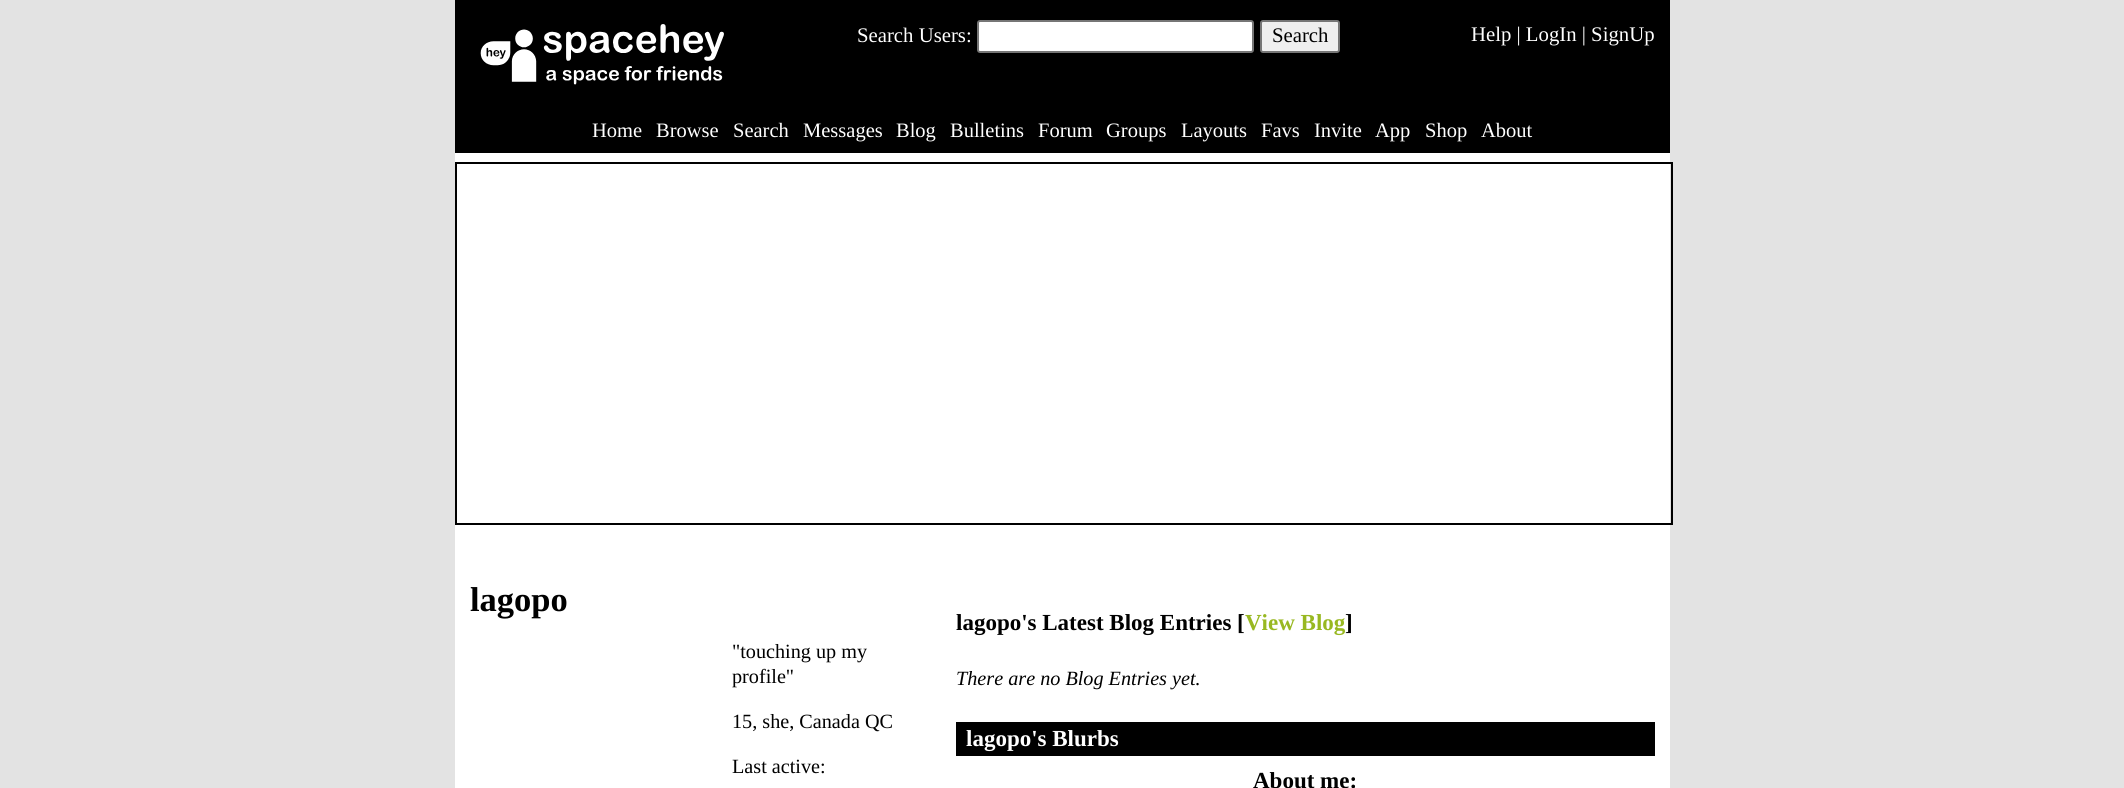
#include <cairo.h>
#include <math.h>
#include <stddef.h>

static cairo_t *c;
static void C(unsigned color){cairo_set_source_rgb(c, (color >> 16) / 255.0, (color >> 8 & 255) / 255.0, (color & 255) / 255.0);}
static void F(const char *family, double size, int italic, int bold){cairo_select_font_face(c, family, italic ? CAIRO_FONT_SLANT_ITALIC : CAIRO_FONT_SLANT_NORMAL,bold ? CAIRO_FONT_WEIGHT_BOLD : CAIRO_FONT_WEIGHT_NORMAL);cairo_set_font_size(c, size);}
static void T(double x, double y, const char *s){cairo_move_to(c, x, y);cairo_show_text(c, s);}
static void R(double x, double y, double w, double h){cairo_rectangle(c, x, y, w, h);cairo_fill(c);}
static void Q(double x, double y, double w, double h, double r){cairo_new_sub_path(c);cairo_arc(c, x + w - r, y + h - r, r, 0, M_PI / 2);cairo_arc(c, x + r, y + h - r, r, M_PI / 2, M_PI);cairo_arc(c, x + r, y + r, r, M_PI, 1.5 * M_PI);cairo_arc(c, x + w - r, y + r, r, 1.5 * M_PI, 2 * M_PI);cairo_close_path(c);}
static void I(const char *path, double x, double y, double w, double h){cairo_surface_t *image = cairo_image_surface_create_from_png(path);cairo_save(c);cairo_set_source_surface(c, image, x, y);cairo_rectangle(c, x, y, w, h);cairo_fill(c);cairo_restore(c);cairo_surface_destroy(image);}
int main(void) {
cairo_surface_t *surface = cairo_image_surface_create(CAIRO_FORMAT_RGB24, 2124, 788);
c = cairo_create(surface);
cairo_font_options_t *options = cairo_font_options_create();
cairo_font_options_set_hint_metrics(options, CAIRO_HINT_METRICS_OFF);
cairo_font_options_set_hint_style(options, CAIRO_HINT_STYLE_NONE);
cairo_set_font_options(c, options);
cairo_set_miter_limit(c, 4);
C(0xe3e3e3);
cairo_paint(c);
C(0x000000);
R(455,0,1215,153);
I("1.png",480,24,244,61);
F("Liberation Serif",20.75,0,0);
C(0xffffff);
T(857,42,"Search Users:");
Q(978,21,275,31,2);
cairo_fill_preserve(c);
C(0x767676);
cairo_stroke(c);
C(0xefefef);
Q(1261,21,78,31,2);
cairo_fill_preserve(c);
C(0x767676);
cairo_stroke(c);
C(0x000000);
T(1272,42,"Search");
C(0xffffff);
T(1471,41,"Help | LogIn | SignUp");
F("Liberation Serif",20.5,0,0);
T(592,137,"Home");
T(656,137,"Browse");
T(733,137,"Search");
T(803,137,"Messages");
T(896,137,"Blog");
T(950,137,"Bulletins");
T(1038,137,"Forum");
T(1106,137,"Groups");
T(1181,137,"Layouts");
T(1261,137,"Favs");
T(1314,137,"Invite");
T(1375,137,"App");
T(1425,137,"Shop");
T(1481,137,"About");
R(455,153,1215,635);
cairo_rectangle(c,456,163,1216,361);
C(0x000000);
cairo_stroke(c);
F("Liberation Serif",34.5,0,1);
T(470,611,"lagopo");
F("Liberation Serif",20.2,0,0);
T(732,658,"\"touching up my");
T(732,683,"profile\"");
T(732,728,"15, she, Canada QC");
T(732,773,"Last active:");
F("Liberation Serif",23,0,1);
T(956,630,"lagopo's Latest Blog Entries [");
C(0x98b821);
T(1245,630,"View Blog");
C(0x000000);
T(1345,630,"]");
F("Liberation Serif",20.2,1,0);
T(956,685,"There are no Blog Entries yet.");
R(956,722,699,34);
F("Liberation Serif",23,0,1);
C(0xffffff);
T(966,746,"lagopo's Blurbs");
C(0x000000);
T(1253,788,"About me:");
cairo_surface_write_to_png(surface, "o.png");
cairo_font_options_destroy(options);
cairo_destroy(c);
cairo_surface_destroy(surface);
return 0;
}
